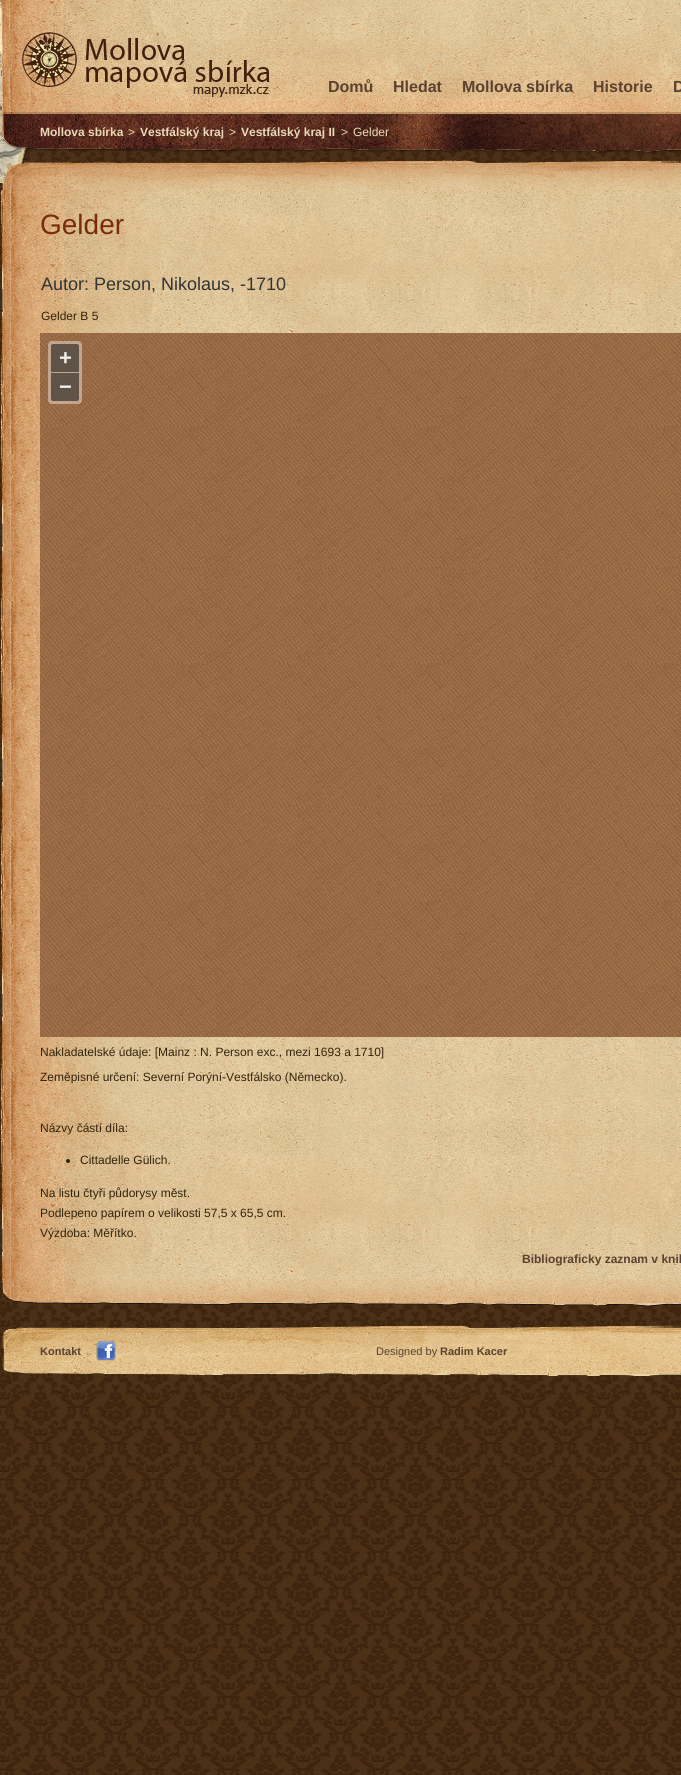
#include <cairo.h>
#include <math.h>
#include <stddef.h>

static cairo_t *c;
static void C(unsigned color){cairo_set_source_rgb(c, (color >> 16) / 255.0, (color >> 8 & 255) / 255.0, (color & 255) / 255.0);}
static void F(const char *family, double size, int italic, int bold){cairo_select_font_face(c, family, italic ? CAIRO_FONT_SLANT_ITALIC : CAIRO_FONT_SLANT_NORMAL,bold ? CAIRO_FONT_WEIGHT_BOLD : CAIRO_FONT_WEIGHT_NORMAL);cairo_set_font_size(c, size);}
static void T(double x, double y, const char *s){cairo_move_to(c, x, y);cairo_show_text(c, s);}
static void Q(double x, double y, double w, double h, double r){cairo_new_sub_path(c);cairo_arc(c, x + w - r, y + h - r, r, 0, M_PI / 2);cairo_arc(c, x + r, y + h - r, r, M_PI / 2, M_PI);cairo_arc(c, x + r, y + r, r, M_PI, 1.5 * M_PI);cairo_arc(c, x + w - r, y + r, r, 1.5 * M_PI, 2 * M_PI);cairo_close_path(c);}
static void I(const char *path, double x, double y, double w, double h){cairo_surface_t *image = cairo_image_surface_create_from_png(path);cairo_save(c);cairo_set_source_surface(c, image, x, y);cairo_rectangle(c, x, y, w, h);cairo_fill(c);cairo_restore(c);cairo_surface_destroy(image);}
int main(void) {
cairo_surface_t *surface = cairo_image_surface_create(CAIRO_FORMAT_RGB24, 681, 1775);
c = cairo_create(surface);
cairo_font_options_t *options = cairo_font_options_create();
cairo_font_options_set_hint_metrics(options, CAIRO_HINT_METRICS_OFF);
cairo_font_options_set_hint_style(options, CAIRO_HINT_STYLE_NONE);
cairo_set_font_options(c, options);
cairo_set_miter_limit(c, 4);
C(0xffffff);
cairo_paint(c);
I("1.png",0,0,681,1775);
I("2.png",0,0,40,186);
I("3.png",0,0,681,154);
I("4.png",22,32,248,65);
F("Liberation Sans",16,0,1);
C(0x5b412f);
T(328,92,"Domů");
T(393,92,"Hledat");
T(462,92,"Mollova sbírka");
T(593,92,"Historie");
T(673,92,"D");
F("Liberation Sans",12,0,1);
C(0xead9b7);
T(40,136,"Mollova sbírka");
F("Liberation Sans",12,0,0);
T(128,136,">");
F("Liberation Sans",12,0,1);
T(140,136,"Vestfálský kraj");
F("Liberation Sans",12,0,0);
T(229,136,">");
F("Liberation Sans",12,0,1);
T(241,136,"Vestfálský kraj II");
F("Liberation Sans",12,0,0);
T(341,136,">");
T(353,136,"Gelder");
I("5.png",2,160,679,30);
I("6.png",1,190,680,1089);
F("Liberation Sans",28,0,0);
C(0x7a2b0a);
T(40,234,"Gelder");
F("Liberation Sans",18,0,0);
C(0x333333);
T(41,290,"Autor: Person, Nikolaus, -1710");
F("Liberation Sans",12,0,0);
C(0x32240b);
T(41,320,"Gelder B 5");
I("7.png",40,333,641,704);
cairo_set_source_rgba(c,1,1,1,0.4);
Q(48,341,34,63,4);
cairo_fill(c);
cairo_set_source_rgba(c,0,0,0,0.5);
cairo_new_path(c);
cairo_move_to(c,53,344);
cairo_line_to(c,77,344);
cairo_curve_to(c,78,344,79,345,79,346);
cairo_line_to(c,79,372);
cairo_line_to(c,51,372);
cairo_line_to(c,51,346);
cairo_curve_to(c,51,345,52,344,53,344);
cairo_close_path(c);
cairo_fill(c);
F("Liberation Sans",22,0,1);
C(0xeeeeee);
T(59,365,"+");
cairo_set_source_rgba(c,0,0,0,0.5);
cairo_new_path(c);
cairo_move_to(c,51,373);
cairo_line_to(c,79,373);
cairo_line_to(c,79,399);
cairo_curve_to(c,79,400,78,401,77,401);
cairo_line_to(c,53,401);
cairo_curve_to(c,52,401,51,400,51,399);
cairo_close_path(c);
cairo_fill(c);
C(0xeeeeee);
T(59,394,"−");
F("Liberation Sans",12,0,0);
C(0x32240b);
T(40,1056,"Nakladatelské údaje: [Mainz : N. Person exc., mezi 1693 a 1710]");
T(40,1081,"Zeměpisné určení: Severní Porýní-Vestfálsko (Německo).");
T(40,1132,"Názvy částí díla:");
cairo_new_path(c);
cairo_arc(c,68,1161,2,0,2 * M_PI);
cairo_fill(c);
T(80,1164,"Cittadelle Gülich.");
T(40,1197,"Na listu čtyři půdorysy měst.");
T(40,1217,"Podlepeno papírem o velikosti 57,5 x 65,5 cm.");
T(40,1237,"Výzdoba: Měřítko.");
F("Liberation Sans",12,0,1);
C(0x5b412f);
T(522,1263,"Bibliograficky zaznam v knih");
I("8.png",2,1279,679,29);
I("9.png",2,1325,679,51);
F("Liberation Sans",11,0,1);
T(40,1355,"Kontakt");
I("10.png",96,1341,20,20);
F("Liberation Sans",11,0,0);
T(376,1355,"Designed by");
F("Liberation Sans",11,0,1);
T(440,1355,"Radim Kacer");
cairo_surface_write_to_png(surface, "o.png");
cairo_font_options_destroy(options);
cairo_destroy(c);
cairo_surface_destroy(surface);
return 0;
}
